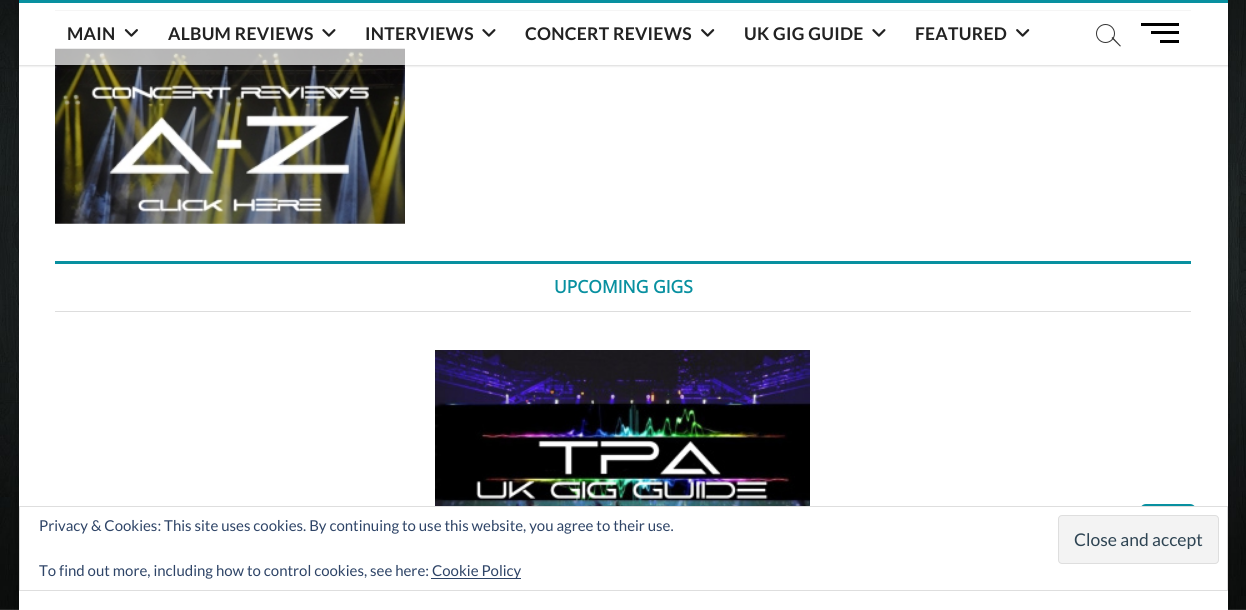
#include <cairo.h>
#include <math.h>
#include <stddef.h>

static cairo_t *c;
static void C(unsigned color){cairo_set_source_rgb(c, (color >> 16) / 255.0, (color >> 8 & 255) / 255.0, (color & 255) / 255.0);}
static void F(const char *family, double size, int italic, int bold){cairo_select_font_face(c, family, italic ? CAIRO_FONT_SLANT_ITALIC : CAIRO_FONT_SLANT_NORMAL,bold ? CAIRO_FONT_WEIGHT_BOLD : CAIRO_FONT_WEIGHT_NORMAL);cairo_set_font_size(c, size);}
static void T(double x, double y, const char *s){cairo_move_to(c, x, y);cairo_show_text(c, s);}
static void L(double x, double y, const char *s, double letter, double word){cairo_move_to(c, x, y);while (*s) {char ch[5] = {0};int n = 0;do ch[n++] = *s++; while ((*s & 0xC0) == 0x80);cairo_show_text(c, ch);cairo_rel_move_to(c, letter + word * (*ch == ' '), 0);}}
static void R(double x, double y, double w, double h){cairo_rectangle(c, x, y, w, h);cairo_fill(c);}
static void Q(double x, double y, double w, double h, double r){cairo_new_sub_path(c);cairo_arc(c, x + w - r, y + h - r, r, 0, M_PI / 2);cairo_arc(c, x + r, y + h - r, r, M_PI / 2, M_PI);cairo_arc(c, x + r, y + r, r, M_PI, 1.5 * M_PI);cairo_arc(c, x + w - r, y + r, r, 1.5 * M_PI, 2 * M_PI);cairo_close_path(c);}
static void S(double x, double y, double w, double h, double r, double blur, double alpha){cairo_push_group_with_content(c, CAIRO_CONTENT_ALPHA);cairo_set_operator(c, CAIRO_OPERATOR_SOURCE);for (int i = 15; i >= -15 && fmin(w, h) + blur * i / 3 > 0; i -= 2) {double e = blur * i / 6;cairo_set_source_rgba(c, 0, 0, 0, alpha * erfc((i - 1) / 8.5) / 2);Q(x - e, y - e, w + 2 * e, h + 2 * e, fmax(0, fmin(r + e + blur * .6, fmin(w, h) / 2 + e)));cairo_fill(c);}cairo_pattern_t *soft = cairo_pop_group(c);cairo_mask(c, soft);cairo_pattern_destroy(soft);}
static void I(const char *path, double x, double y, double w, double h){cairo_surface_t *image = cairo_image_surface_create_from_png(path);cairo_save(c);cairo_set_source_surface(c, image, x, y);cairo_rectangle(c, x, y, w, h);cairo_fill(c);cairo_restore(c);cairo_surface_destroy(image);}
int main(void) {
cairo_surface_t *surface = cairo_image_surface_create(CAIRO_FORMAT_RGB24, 1246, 610);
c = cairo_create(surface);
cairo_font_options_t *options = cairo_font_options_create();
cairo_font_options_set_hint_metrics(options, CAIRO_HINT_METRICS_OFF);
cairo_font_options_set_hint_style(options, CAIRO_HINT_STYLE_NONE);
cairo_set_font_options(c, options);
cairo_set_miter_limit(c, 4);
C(0xffffff);
cairo_paint(c);
I("1.png",0,0,1246,610);
C(0x000000);
S(19,-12,1209,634,0,4,.15);
C(0xffffff);
R(19,3,1209,607);
C(0xdddddd);
R(55,10,1136,1);
I("5.png",55,48,350,176);
cairo_save(c);
cairo_set_fill_rule(c,CAIRO_FILL_RULE_EVEN_ODD);
cairo_new_path(c);
cairo_move_to(c,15,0);
cairo_line_to(c,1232,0);
cairo_line_to(c,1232,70);
cairo_line_to(c,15,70);
cairo_close_path(c);
cairo_move_to(c,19,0);
cairo_line_to(c,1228,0);
cairo_line_to(c,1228,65);
cairo_line_to(c,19,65);
cairo_close_path(c);
cairo_clip(c);
C(0x000000);
S(19,1,1209,65,0,1,.15);
cairo_restore(c);
cairo_set_source_rgba(c,1,1,1,0.7);
R(55,3,1173,62);
C(0x0890a0);
R(19,0,1209,3);
F("Lato",17.5,0,1);
C(0x222222);
L(67,40,"MAIN",.25,0);
I("2.png",124,29,14,8);
L(168,40,"ALBUM REVIEWS",.25,0);
I("3.png",322,29,14,8);
L(365,40,"INTERVIEWS",.25,0);
I("3.png",482,29,14,8);
L(525,40,"CONCERT REVIEWS",.25,0);
I("4.png",701,29,14,8);
L(744,40,"UK GIG GUIDE",.25,0);
I("3.png",872,29,14,8);
L(915,40,"FEATURED",.25,0);
I("4.png",1016,29,14,8);
cairo_arc(c,1105.5,33.5,9,0,2 * M_PI);
C(0x333333);
cairo_set_line_width(c,1);
cairo_stroke(c);
cairo_new_path(c);
cairo_move_to(c,1111.5,38);
cairo_line_to(c,1112.5,37);
cairo_line_to(c,1121,46);
cairo_line_to(c,1120,46.5);
cairo_close_path(c);
cairo_fill(c);
C(0x000000);
R(1151,31,28,3);
R(1141,23,38,3);
R(1160,40,19,3);
C(0x0890a0);
R(55,261,1136,3);
C(0xdddddd);
R(55,311,1136,1);
F("Open Sans",17.5,0,1);
C(0x0890a0);
T(554,293,"UPCOMING GIGS");
I("6.png",435,350,375,156);
Q(1140,504,56,56,6);
cairo_fill(c);
C(0xffffff);
R(1140,507,56,53);
cairo_rectangle(c,19.5,506.5,1208,84);
C(0xdedede);
cairo_stroke(c);
F("Lato",15,0,0);
C(0x2e4467);
T(39,531,"Privacy & Cookies: This site uses cookies. By continuing to use this website, you agree to their use.");
C(0xf3f3f3);
Q(1058.5,515.5,160,48,3.5);
cairo_fill_preserve(c);
C(0xdedede);
cairo_stroke(c);
F("Lato",17.5,0,0);
C(0x2e4453);
T(1074,546,"Close and accept");
F("Lato",15,0,0);
C(0x2e4467);
T(39,576,"To find out more, including how to control cookies, see here:");
R(431,578,90,1);
T(432,576,"Cookie Policy");
cairo_surface_write_to_png(surface, "o.png");
cairo_font_options_destroy(options);
cairo_destroy(c);
cairo_surface_destroy(surface);
return 0;
}
